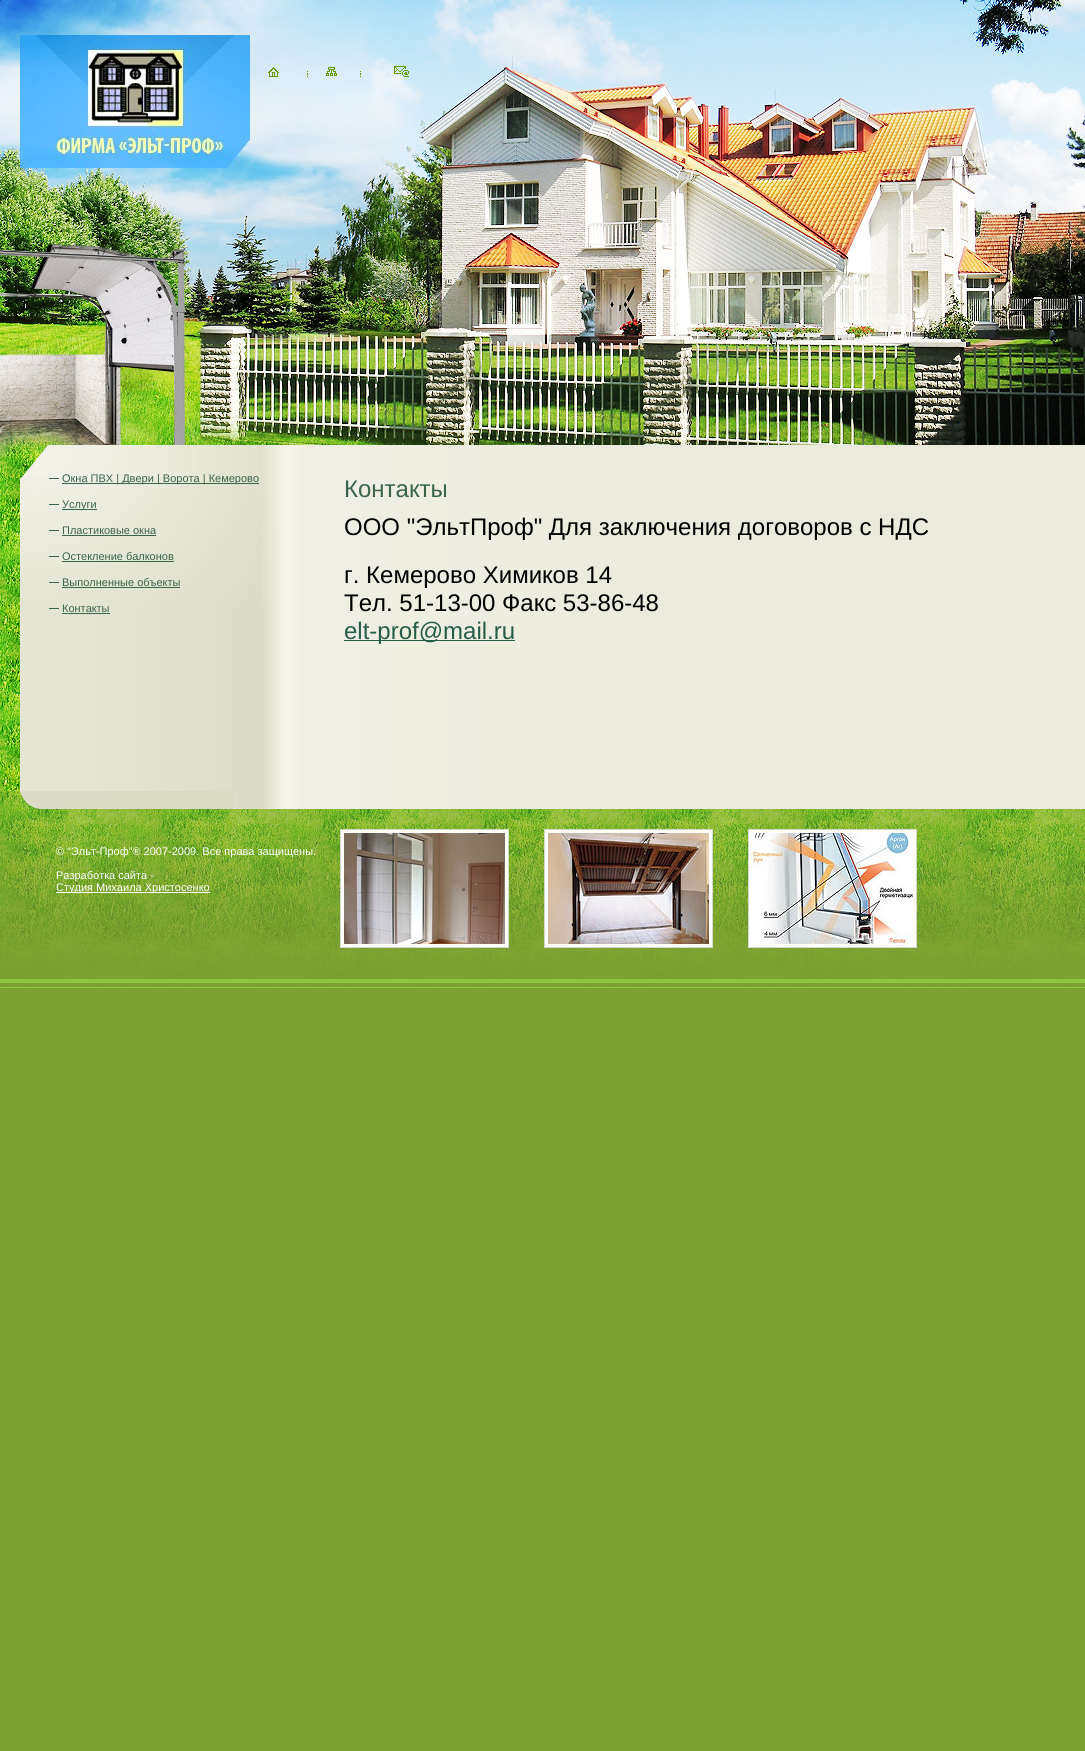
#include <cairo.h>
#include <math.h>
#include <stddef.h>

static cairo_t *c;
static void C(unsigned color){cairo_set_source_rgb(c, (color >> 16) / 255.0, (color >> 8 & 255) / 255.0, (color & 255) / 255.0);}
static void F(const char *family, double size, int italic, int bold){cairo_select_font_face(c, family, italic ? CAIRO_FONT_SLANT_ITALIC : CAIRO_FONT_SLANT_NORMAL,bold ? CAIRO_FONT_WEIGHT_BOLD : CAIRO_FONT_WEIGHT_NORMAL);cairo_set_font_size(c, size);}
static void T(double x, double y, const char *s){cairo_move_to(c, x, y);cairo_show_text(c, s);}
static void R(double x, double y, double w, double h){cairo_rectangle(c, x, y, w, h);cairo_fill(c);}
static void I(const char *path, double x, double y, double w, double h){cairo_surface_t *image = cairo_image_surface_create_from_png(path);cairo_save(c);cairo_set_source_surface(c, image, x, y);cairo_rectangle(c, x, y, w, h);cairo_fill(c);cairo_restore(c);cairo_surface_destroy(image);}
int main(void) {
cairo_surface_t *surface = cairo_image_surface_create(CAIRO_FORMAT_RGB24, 1085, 1751);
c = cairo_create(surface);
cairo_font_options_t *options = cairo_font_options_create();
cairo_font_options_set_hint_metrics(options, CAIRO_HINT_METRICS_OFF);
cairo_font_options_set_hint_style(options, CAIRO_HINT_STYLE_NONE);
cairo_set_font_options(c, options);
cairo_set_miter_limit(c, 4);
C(0x7da033);
cairo_paint(c);
I("1.png",0,0,1085,445);
I("2.png",20,35,230,133);
I("3.png",268,66,141,11);
I("4.png",0,445,1085,364);
I("5.png",0,445,273,161);
I("6.png",0,791,233,18);
C(0x3a644b);
R(49,478,10,1);
R(62,483,197,1);
F("Liberation Sans",11,0,0);
T(62,482,"Окна ПВХ | Двери | Ворота | Кемерово");
R(49,504,10,1);
R(62,509,35,1);
T(62,508,"Услуги");
R(49,530,10,1);
T(62,534,"Пластиковые окна");
R(62,535,94,1);
R(49,556,10,1);
T(62,560,"Остекление балконов");
R(62,561,112,1);
R(49,582,10,1);
T(62,586,"Выполненные объекты");
R(62,587,118,1);
R(49,608,10,1);
T(62,612,"Контакты");
R(62,613,48,1);
F("Liberation Sans",24,0,0);
T(344,497,"Контакты");
C(0x000000);
T(344,535,"ООО \"ЭльтПроф\" Для заключения договоров с НДС");
T(344,583,"г. Кемерово Химиков 14");
T(344,611,"Тел. 51-13-00 Факс 53-86-48");
C(0x275c49);
R(344,640,171,1);
T(344,639,"elt-prof@mail.ru");
I("7.png",0,809,1085,179);
F("Liberation Sans",11,0,0);
C(0xffffff);
T(56,855,"© “Эльт-Проф”® 2007-2009. Все права защищены.");
T(56,879,"Разработка сайта -");
R(56,892,154,1);
T(56,891,"Студия Михаила Христосенко");
I("8.png",340,829,169,119);
I("9.png",544,829,169,119);
I("10.png",748,829,169,119);
cairo_surface_write_to_png(surface, "o.png");
cairo_font_options_destroy(options);
cairo_destroy(c);
cairo_surface_destroy(surface);
return 0;
}
